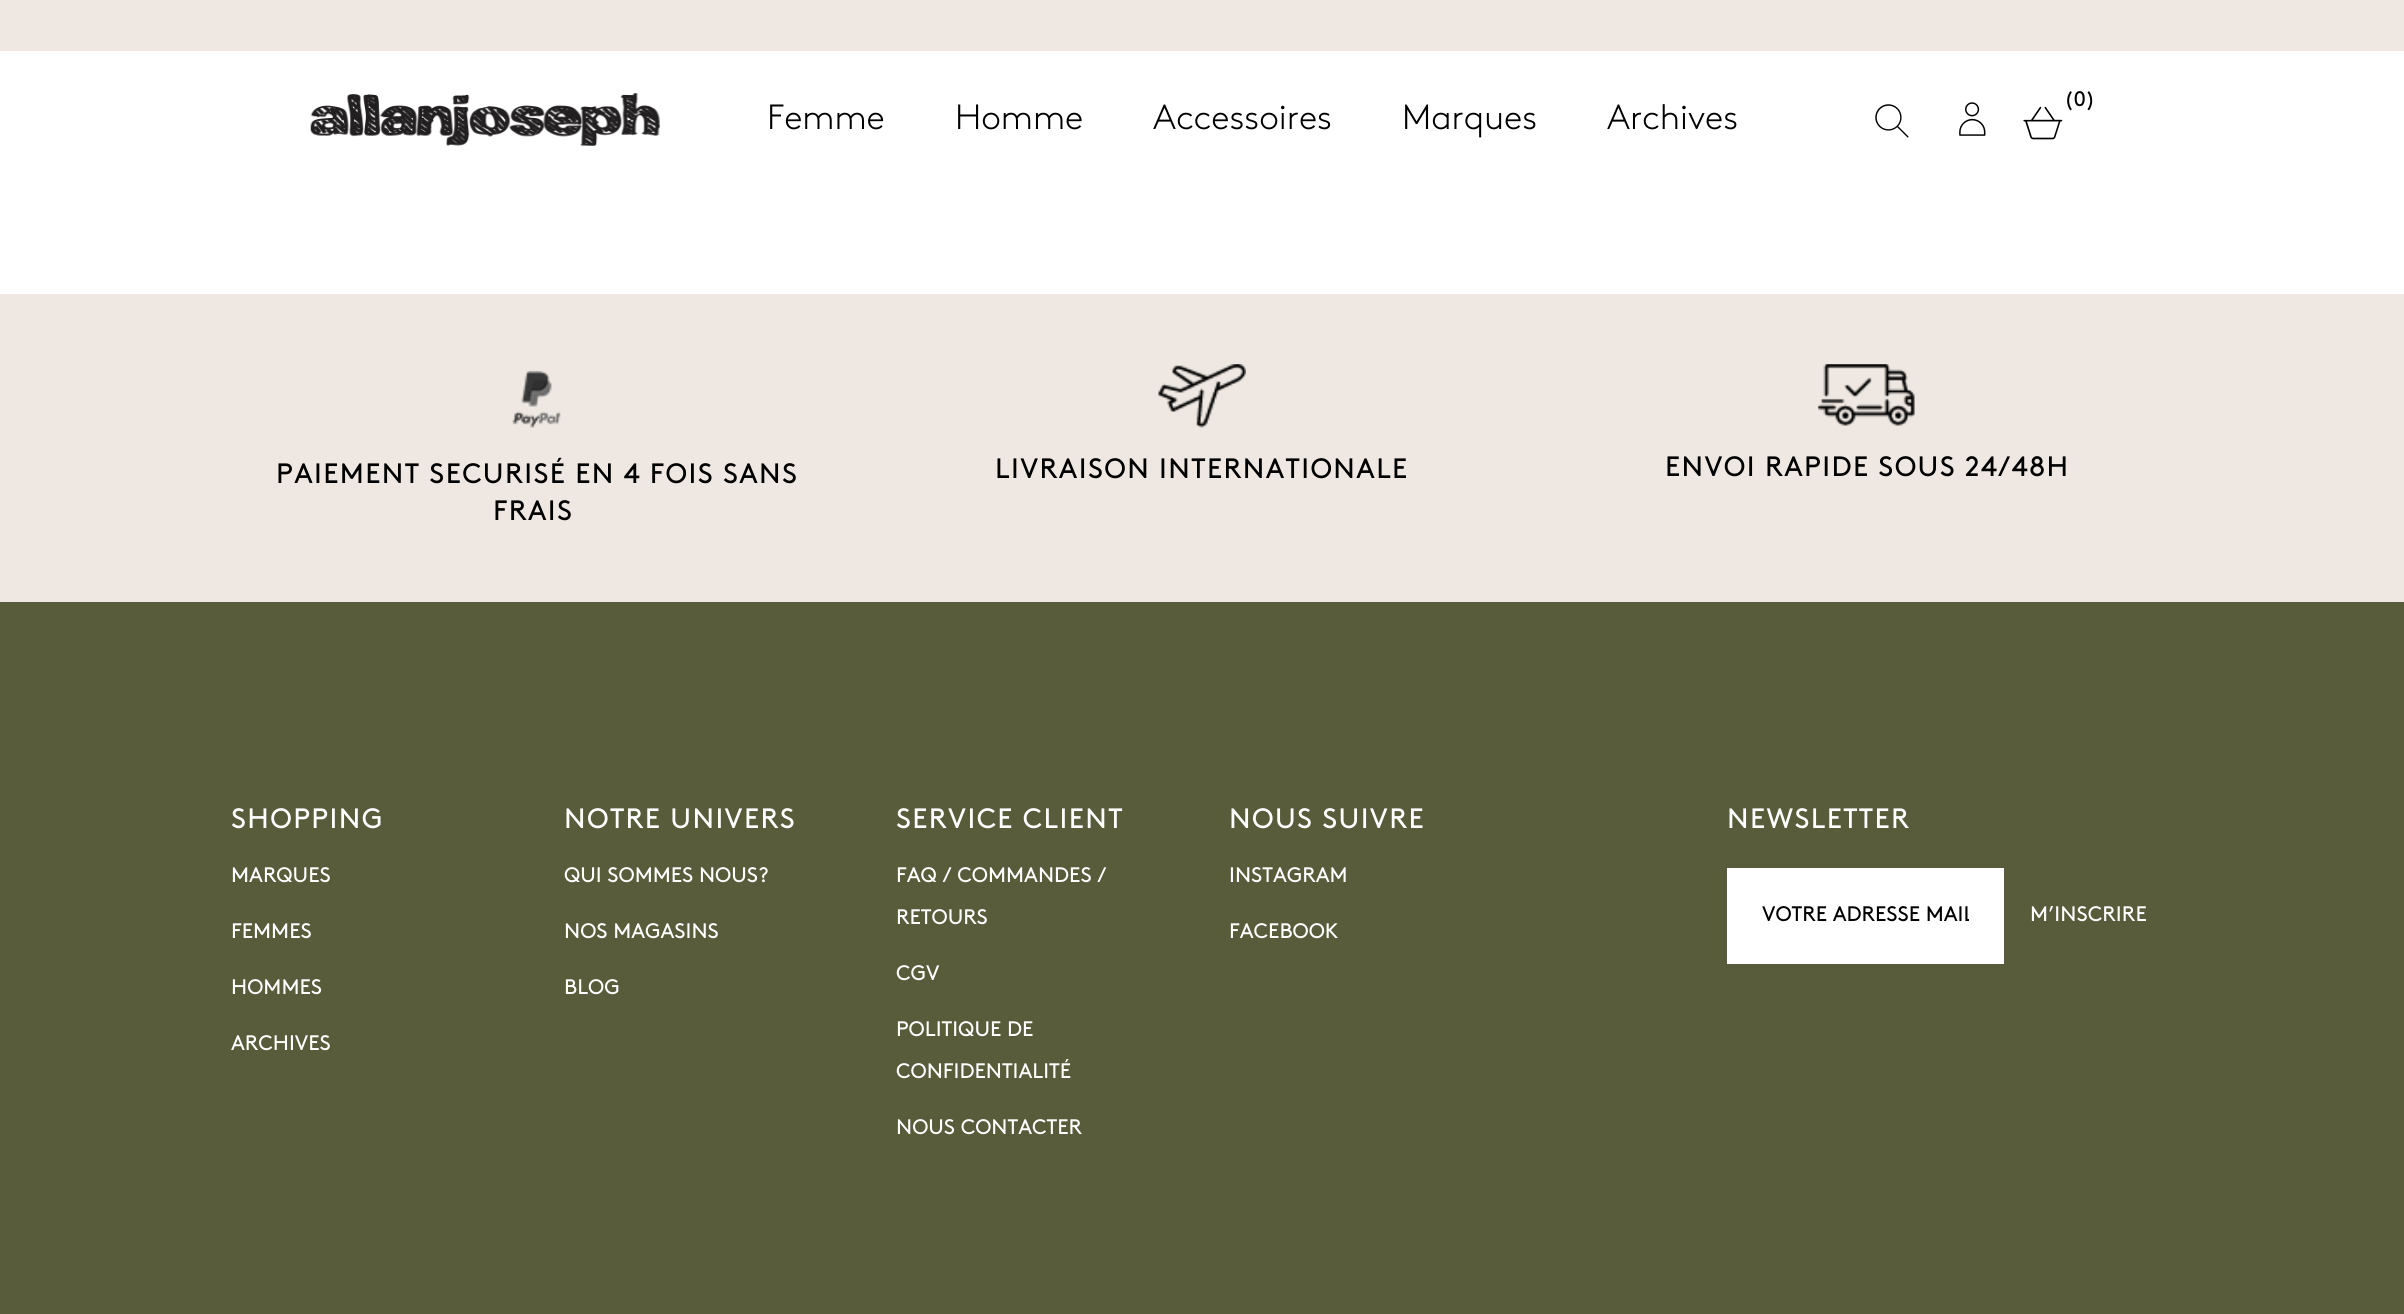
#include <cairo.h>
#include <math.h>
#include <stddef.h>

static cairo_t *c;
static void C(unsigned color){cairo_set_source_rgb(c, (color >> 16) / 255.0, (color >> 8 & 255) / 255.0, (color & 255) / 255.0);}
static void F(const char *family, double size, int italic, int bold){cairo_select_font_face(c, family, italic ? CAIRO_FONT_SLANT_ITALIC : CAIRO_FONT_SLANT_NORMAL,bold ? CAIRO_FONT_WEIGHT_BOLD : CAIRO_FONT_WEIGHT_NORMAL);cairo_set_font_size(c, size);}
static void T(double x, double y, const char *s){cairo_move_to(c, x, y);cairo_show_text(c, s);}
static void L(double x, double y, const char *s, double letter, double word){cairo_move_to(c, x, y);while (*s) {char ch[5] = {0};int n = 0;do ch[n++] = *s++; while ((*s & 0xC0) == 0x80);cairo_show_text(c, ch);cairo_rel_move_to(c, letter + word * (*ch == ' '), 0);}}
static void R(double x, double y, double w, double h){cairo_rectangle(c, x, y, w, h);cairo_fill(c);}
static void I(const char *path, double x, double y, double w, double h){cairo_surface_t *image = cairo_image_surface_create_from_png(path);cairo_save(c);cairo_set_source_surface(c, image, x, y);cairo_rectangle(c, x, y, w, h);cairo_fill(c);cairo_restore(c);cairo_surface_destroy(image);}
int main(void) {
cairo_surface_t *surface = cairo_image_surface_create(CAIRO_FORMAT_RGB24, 2404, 1314);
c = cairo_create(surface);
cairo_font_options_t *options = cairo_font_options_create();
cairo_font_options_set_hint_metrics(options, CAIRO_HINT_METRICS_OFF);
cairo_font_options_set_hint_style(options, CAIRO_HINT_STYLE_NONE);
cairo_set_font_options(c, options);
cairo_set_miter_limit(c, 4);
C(0xffffff);
cairo_paint(c);
C(0xefe8e2);
R(0,0,2404,51);
I("1.png",310,93,350,53);
F("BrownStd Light",35,0,0);
C(0x000000);
T(767,129,"Femme");
T(955,129,"Homme");
T(1153,129,"Accessoires");
T(1402,129,"Marques");
T(1607,129,"Archives");
I("2.png",1875,104,34,34);
I("3.png",1959,102,27,34);
F("BrownStd",21,0,0);
L(2064,106,"(0)",.1,0);
I("4.png",2023,106,40,34);
C(0xefe8e2);
R(0,294,2404,308);
I("5.png",512,370,49,58);
F("BrownStd",28,0,0);
C(0x000000);
L(276,483,"PAIEMENT SECURISÉ EN 4 FOIS SANS",1.4,0);
L(493,520,"FRAIS",1.4,0);
I("6.png",1158,364,88,64);
L(995,478,"LIVRAISON INTERNATIONALE",1.4,0);
I("7.png",1818,364,97,62);
L(1665,476,"ENVOI RAPIDE SOUS 24/48H",1.4,0);
C(0x585c3b);
R(0,602,2404,712);
C(0xffffff);
L(231,828,"SHOPPING",1.4,0);
F("BrownStd",21,0,0);
T(231,882,"MARQUES");
T(231,938,"FEMMES");
T(231,994,"HOMMES");
T(231,1050,"ARCHIVES");
F("BrownStd",28,0,0);
L(564,828,"NOTRE UNIVERS",1.4,0);
F("BrownStd",21,0,0);
T(564,882,"QUI SOMMES NOUS?");
T(564,938,"NOS MAGASINS");
T(564,994,"BLOG");
F("BrownStd",28,0,0);
L(896,828,"SERVICE CLIENT",1.4,0);
F("BrownStd",21,0,0);
T(896,882,"FAQ / COMMANDES /");
T(896,924,"RETOURS");
T(896,980,"CGV");
T(896,1036,"POLITIQUE DE");
T(896,1078,"CONFIDENTIALITÉ");
T(896,1134,"NOUS CONTACTER");
F("BrownStd",28,0,0);
L(1229,828,"NOUS SUIVRE",1.4,0);
F("BrownStd",21,0,0);
T(1229,882,"INSTAGRAM");
T(1229,938,"FACEBOOK");
F("BrownStd",28,0,0);
L(1727,828,"NEWSLETTER",1.4,0);
R(1727,868,277,96);
cairo_save(c);
cairo_rectangle(c,1762,903,207,26);
cairo_clip(c);
F("BrownStd",21,0,0);
C(0x000000);
T(1762,921,"VOTRE ADRESSE MAIL");
cairo_restore(c);
F("BrownStd",21,0,0);
L(2030,921,"M’INSCRIRE",.1,0);
cairo_surface_write_to_png(surface, "o.png");
cairo_font_options_destroy(options);
cairo_destroy(c);
cairo_surface_destroy(surface);
return 0;
}
